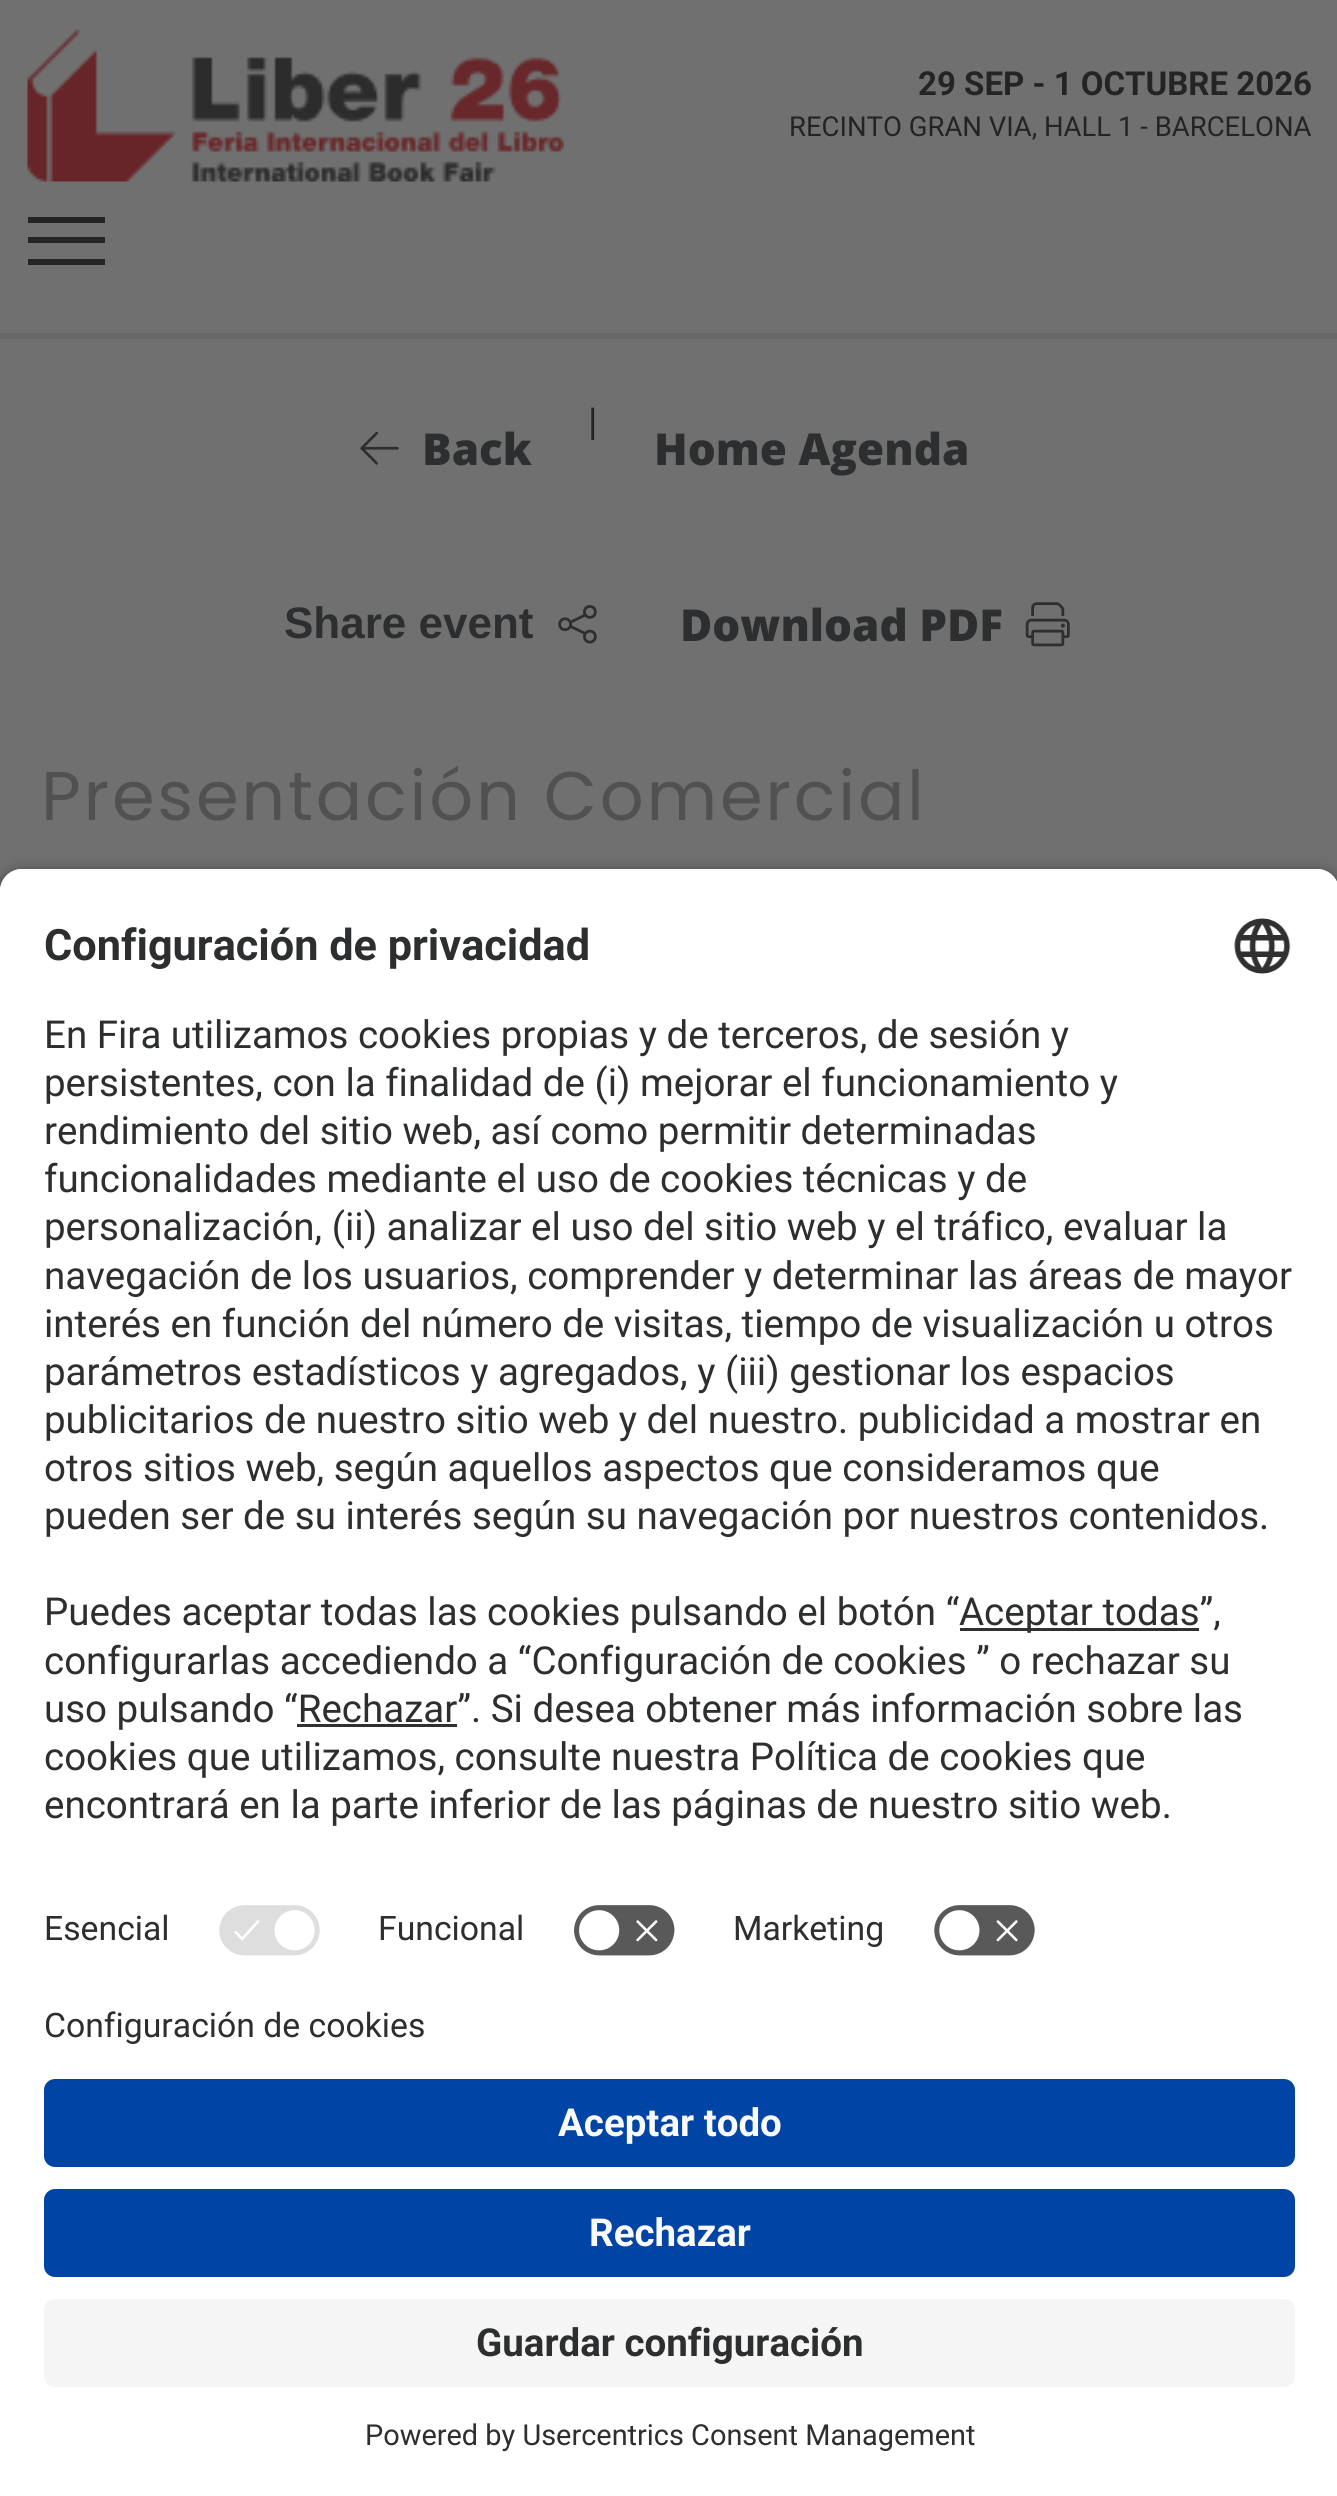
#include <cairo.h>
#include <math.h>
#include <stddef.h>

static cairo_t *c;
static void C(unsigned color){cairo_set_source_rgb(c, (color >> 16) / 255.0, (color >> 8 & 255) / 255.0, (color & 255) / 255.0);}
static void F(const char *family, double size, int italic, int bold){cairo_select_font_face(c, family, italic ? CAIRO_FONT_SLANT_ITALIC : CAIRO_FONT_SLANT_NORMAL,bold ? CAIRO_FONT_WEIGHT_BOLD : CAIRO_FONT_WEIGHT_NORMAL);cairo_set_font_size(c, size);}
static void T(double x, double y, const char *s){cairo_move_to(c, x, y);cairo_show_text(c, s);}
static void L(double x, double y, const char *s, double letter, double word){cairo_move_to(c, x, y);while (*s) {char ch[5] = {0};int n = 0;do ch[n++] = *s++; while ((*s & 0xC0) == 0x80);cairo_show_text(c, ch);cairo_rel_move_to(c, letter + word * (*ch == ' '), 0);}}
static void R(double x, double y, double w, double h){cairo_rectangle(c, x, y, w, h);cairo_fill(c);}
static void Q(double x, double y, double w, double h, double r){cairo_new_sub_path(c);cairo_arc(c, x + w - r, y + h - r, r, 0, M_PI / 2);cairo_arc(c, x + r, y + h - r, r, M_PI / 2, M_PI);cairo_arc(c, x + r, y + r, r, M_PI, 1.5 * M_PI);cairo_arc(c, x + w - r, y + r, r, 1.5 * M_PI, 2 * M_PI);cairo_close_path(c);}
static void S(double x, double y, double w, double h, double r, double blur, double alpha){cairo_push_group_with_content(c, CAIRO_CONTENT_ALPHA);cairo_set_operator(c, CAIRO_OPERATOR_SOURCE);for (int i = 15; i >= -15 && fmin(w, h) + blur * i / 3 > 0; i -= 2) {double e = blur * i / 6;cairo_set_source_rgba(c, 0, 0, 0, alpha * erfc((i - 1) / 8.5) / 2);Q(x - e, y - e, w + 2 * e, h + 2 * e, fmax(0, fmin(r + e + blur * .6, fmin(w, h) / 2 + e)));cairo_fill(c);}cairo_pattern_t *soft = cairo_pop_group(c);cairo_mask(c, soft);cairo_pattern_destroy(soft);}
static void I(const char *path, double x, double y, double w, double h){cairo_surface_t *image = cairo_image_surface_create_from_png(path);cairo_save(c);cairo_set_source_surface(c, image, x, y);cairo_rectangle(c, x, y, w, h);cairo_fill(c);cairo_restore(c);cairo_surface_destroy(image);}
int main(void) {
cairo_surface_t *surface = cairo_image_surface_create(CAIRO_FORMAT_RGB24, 1337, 2496);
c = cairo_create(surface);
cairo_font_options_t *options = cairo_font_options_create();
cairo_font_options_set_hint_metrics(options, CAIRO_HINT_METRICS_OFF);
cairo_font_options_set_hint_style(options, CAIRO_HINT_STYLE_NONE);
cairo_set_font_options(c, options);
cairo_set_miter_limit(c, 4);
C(0x707070);
cairo_paint(c);
C(0x666869);
R(0,333,1337,6);
I("1.png",27,29,537,153);
F("Roboto",33,0,1);
C(0x242424);
T(918,95,"29 SEP - 1 OCTUBRE 2026");
F("Roboto",27.5,0,0);
T(789,136,"RECINTO GRAN VIA, HALL 1 - BARCELONA");
R(28,217,77,6);
R(28,237,77,6);
R(28,259,77,6);
F("Roboto",38.5,0,0);
T(588,435,"|");
I("2.png",360,431,39,34);
F("Open Sans ExtraBold",44,0,0);
C(0x2d2e2f);
T(422,465,"Back");
T(654,465,"Home Agenda");
F("Liberation Sans",44,0,1);
T(284,638,"Share event");
I("3.png",558,605,39,39);
F("Open Sans ExtraBold",44,0,0);
T(680,641,"Download PDF");
I("4.png",1025,602,45,45);
F("Poppins",68.75,0,0);
C(0x515151);
L(41,820,"Presentación Comercial",2.75,0);
C(0x000000);
S(0,877,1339,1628,22,9.5,.8);
C(0xffffff);
cairo_new_path(c);
cairo_move_to(c,22,869);
cairo_line_to(c,1317,869);
cairo_curve_to(c,1329,869,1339,879,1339,891);
cairo_line_to(c,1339,2008);
cairo_line_to(c,0,2008);
cairo_line_to(c,0,891);
cairo_curve_to(c,0,879,10,869,22,869);
cairo_close_path(c);
cairo_fill(c);
cairo_new_path(c);
cairo_move_to(c,22,869);
cairo_line_to(c,1317,869);
cairo_curve_to(c,1329,869,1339,879,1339,891);
cairo_line_to(c,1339,1887);
cairo_line_to(c,0,1887);
cairo_line_to(c,0,891);
cairo_curve_to(c,0,879,10,869,22,869);
cairo_close_path(c);
cairo_fill(c);
F("Roboto",43.25,0,1);
C(0x2d2e2f);
T(44,960,"Configuración de privacidad");
I("5.png",1234,918,57,56);
F("Roboto",38.5,0,0);
T(44,1048,"En Fira utilizamos cookies propias y de terceros, de sesión y");
T(44,1096,"persistentes, con la finalidad de (i) mejorar el funcionamiento y");
T(44,1144,"rendimiento del sitio web, así como permitir determinadas");
T(44,1192,"funcionalidades mediante el uso de cookies técnicas y de");
T(44,1240,"personalización, (ii) analizar el uso del sitio web y el tráfico, evaluar la");
T(44,1289,"navegación de los usuarios, comprender y determinar las áreas de mayor");
T(44,1337,"interés en función del número de visitas, tiempo de visualización u otros");
T(44,1385,"parámetros estadísticos y agregados, y (iii) gestionar los espacios");
T(44,1433,"publicitarios de nuestro sitio web y del nuestro. publicidad a mostrar en");
T(44,1481,"otros sitios web, según aquellos aspectos que consideramos que");
T(44,1529,"pueden ser de su interés según su navegación por nuestros contenidos.");
T(44,1625,"Puedes aceptar todas las cookies pulsando el botón “");
C(0x303030);
R(960,1628,239,3);
C(0x2d2e2f);
T(959,1625,"Aceptar todas”,");
T(44,1674,"configurarlas accediendo a “Configuración de cookies ” o rechazar su");
T(44,1722,"uso pulsando “Rechazar”. Si desea obtener más información sobre las");
C(0x303030);
R(297,1724,160,3);
C(0x2d2e2f);
T(44,1770,"cookies que utilizamos, consulte nuestra Política de cookies que");
T(44,1818,"encontrará en la parte inferior de las páginas de nuestro sitio web.");
F("Roboto",33.75,0,0);
T(44,1940,"Esencial");
I("6.png",219,1905,101,51);
T(378,1940,"Funcional");
I("7.png",574,1905,101,51);
T(733,1940,"Marketing");
I("8.png",934,1905,101,51);
C(0xffffff);
R(0,2008,1337,488);
C(0x2d2e2f);
T(44,2037,"Configuración de cookies");
C(0x0045a5);
Q(44,2079,1251,88,11);
cairo_fill(c);
F("Roboto",38.5,0,1);
C(0xfafafa);
T(558,2136,"Aceptar todo");
C(0x0045a5);
Q(44,2189,1251,88,11);
cairo_fill(c);
C(0xfafafa);
T(589,2246,"Rechazar");
C(0xf5f5f5);
Q(44,2299,1251,88,11);
cairo_fill(c);
C(0x2d2e2f);
T(476,2356,"Guardar configuración");
F("Roboto",28.9,0,0);
T(365,2445,"Powered by Usercentrics Consent Management");
cairo_surface_write_to_png(surface, "o.png");
cairo_font_options_destroy(options);
cairo_destroy(c);
cairo_surface_destroy(surface);
return 0;
}
